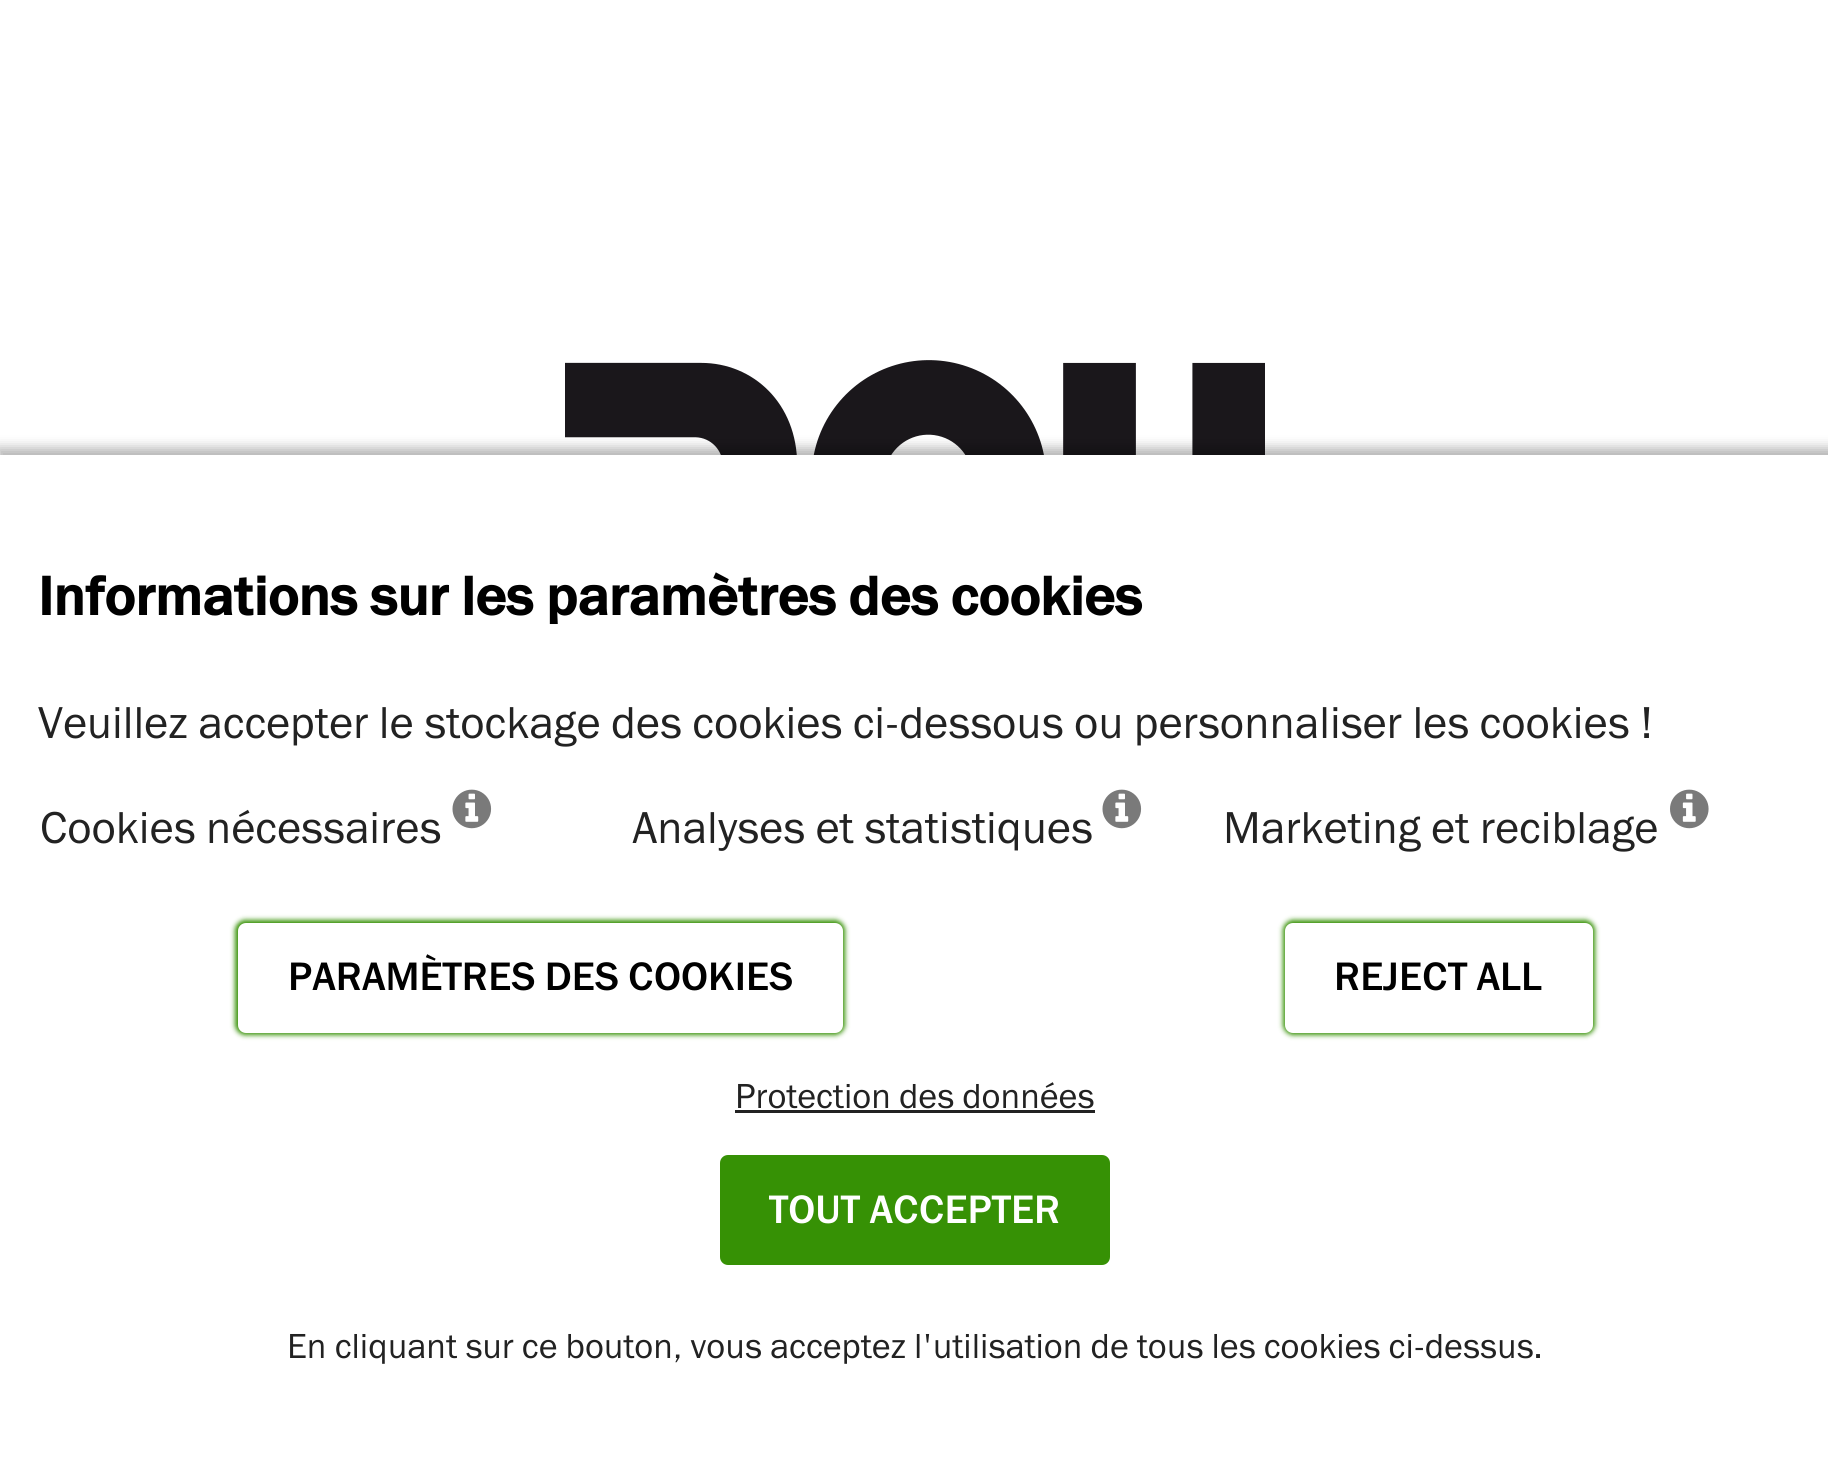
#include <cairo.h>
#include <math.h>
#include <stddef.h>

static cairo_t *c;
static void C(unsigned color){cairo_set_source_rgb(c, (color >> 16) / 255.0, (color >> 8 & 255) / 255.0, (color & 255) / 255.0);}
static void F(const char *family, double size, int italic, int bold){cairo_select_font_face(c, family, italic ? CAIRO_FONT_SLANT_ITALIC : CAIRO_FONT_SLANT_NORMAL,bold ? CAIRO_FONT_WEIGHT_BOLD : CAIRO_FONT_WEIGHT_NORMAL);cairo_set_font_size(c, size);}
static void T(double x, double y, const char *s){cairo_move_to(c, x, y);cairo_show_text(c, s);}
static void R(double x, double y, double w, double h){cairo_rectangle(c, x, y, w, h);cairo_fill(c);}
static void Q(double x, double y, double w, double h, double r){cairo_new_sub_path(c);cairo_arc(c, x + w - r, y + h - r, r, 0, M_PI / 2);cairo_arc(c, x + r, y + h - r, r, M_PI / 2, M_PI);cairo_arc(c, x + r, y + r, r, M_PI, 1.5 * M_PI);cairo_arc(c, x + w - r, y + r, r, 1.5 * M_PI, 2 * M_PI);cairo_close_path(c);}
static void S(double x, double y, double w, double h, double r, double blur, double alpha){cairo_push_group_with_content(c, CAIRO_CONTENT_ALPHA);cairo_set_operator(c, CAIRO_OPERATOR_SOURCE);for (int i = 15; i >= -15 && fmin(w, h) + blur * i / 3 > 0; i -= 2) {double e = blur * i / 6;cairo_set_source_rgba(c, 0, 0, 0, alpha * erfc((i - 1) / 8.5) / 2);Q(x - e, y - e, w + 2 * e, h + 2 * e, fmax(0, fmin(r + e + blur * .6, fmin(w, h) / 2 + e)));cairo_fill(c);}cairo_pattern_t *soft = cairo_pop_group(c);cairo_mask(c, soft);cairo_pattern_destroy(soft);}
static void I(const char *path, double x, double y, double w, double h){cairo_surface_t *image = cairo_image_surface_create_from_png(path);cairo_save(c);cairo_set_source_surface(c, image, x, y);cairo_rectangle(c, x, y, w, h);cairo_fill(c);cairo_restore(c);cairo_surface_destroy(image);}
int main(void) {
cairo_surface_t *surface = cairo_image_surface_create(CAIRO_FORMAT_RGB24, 1828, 1471);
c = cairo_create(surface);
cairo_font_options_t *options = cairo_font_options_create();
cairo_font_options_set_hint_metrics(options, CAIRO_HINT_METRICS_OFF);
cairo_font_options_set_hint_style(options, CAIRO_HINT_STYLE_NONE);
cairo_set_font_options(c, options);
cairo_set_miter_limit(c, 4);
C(0xffffff);
cairo_paint(c);
I("1.png",565,360,700,95);
C(0x000000);
S(-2,448,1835,1022,0,6,.3);
C(0xffffff);
R(0,455,1828,1016);
F("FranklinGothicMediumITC",55,0,1);
C(0x000000);
T(38,615,"Informations sur les paramètres des cookies");
F("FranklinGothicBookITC",45,0,0);
C(0x222222);
T(38,738,"Veuillez accepter le stockage des cookies ci-dessous ou personnaliser les cookies !");
T(40,843,"Cookies nécessaires");
I("2.png",452,789,40,40);
T(632,843,"Analyses et statistiques");
I("2.png",1102,789,40,40);
T(1223,843,"Marketing et reciblage");
I("3.png",1670,789,39,40);
C(0x369105);
S(235,920,610,115,10,2.5,1);
C(0xffffff);
Q(238,923,605,110,8);
cairo_fill(c);
F("FranklinGothicMediumITC Medium",40,0,0);
C(0x000000);
T(288,990,"PARAMÈTRES DES COOKIES");
C(0x369105);
S(1283,920,312,115,10,2.5,1);
C(0xffffff);
Q(1285,923,308,110,8);
cairo_fill(c);
C(0x000000);
T(1334,990,"REJECT ALL");
F("FranklinGothicBookITC",35,0,0);
C(0x222222);
T(735,1108,"Protection des données");
R(735,1110,360,3);
C(0x369105);
Q(720,1155,390,110,8);
cairo_fill(c);
F("FranklinGothicMediumITC Medium",40,0,0);
C(0xffffff);
T(769,1223,"TOUT ACCEPTER");
F("FranklinGothicBookITC",35,0,0);
C(0x222222);
T(287,1358,"En cliquant sur ce bouton, vous acceptez l'utilisation de tous les cookies ci-dessus.");
cairo_surface_write_to_png(surface, "o.png");
cairo_font_options_destroy(options);
cairo_destroy(c);
cairo_surface_destroy(surface);
return 0;
}
